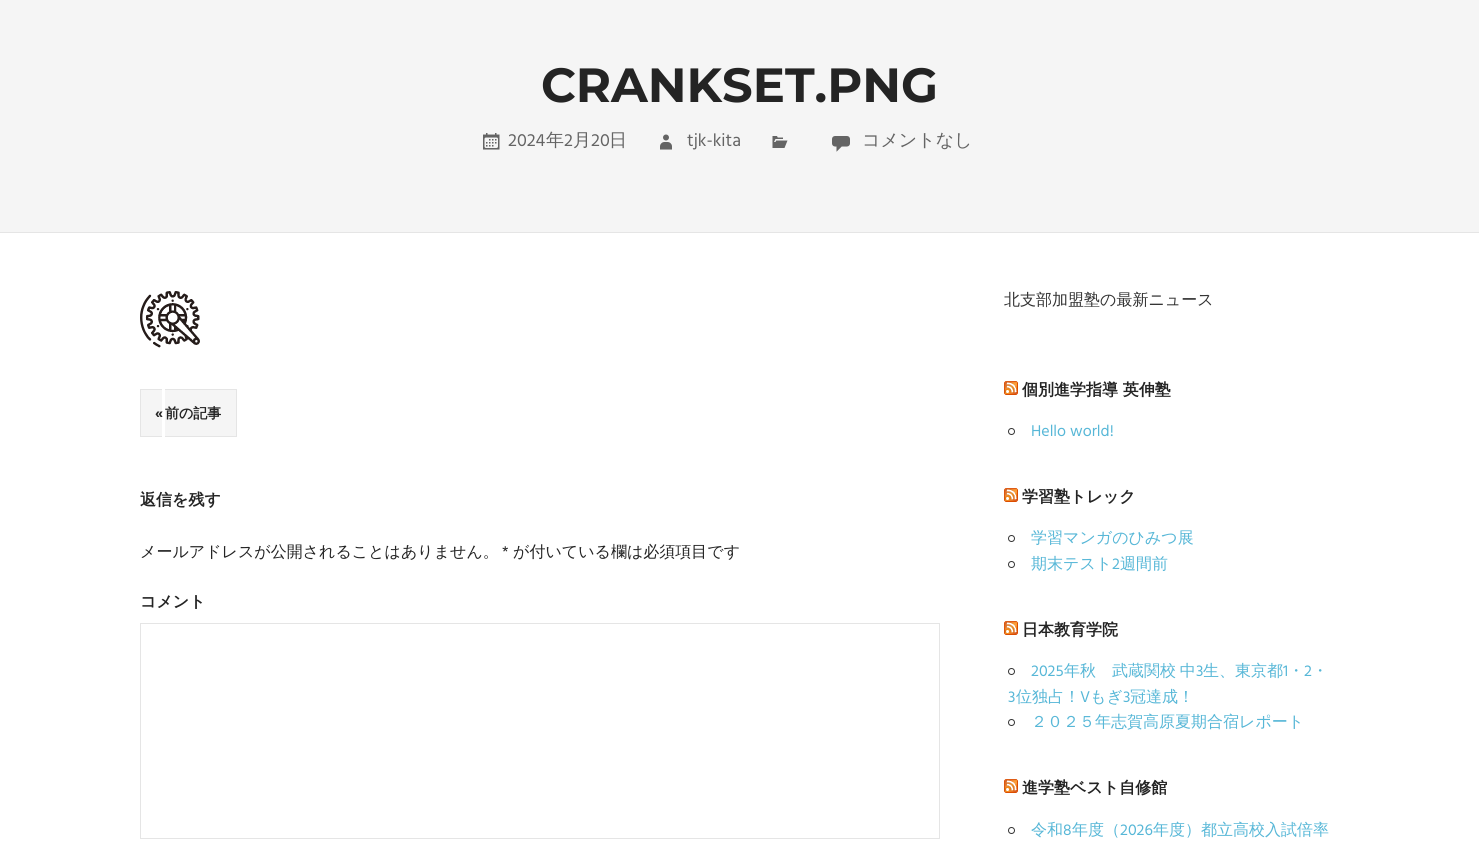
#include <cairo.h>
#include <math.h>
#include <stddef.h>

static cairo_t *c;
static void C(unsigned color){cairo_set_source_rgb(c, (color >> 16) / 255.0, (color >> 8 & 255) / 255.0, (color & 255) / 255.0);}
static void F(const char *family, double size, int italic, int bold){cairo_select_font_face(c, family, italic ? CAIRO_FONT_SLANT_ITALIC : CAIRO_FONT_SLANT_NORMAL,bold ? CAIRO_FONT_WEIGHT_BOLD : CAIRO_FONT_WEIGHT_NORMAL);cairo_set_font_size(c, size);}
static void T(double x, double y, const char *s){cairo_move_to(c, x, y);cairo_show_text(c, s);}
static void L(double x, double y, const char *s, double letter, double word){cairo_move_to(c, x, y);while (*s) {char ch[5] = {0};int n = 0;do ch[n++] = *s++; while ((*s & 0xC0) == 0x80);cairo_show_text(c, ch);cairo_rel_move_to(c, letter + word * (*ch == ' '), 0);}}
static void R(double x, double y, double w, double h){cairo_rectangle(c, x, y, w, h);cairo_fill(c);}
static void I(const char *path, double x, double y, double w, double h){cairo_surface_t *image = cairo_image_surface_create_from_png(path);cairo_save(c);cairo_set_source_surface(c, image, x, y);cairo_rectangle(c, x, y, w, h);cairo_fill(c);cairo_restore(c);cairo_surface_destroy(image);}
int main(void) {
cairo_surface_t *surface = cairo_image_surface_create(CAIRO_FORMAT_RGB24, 1479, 843);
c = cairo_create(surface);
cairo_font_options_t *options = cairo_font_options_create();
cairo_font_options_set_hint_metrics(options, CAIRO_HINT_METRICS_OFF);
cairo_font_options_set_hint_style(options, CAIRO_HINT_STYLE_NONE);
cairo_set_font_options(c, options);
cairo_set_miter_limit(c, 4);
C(0xffffff);
cairo_paint(c);
C(0xf5f5f5);
R(0,0,1479,232);
C(0xe5e5e5);
R(0,232,1479,1);
F("Montserrat",48,0,1);
C(0x242424);
T(541,102,"CRANKSET.PNG");
I("1.png",483,133,17,17);
F("Hind",18,0,0);
C(0x646464);
T(508,146,"2024");
F("WenQuanYi Zen Hei Medium",18,0,0);
T(546,146,"年");
F("Hind",18,0,0);
T(564,146,"2");
F("WenQuanYi Zen Hei Medium",18,0,0);
T(573,146,"月");
F("Hind",18,0,0);
T(591,146,"20");
F("WenQuanYi Zen Hei Medium",18,0,0);
T(609,146,"日");
I("2.png",660,134,12,16);
F("Hind",18,0,0);
T(687,146,"tjk-kita");
I("3.png",772,136,16,12);
I("4.png",832,136,18,16);
F("WenQuanYi Zen Hei Medium",18,0,0);
T(862,146,"コメントなし");
I("5.png",140,291,60,57);
C(0xf5f5f5);
R(141,390,21,46);
F("Montserrat",14,0,1);
C(0x242424);
T(155,418,"«");
C(0xe5e5e5);
R(140,389,22,1);
R(140,436,22,1);
R(140,389,1,48);
R(165,389,72,1);
R(236,389,1,48);
R(165,436,72,1);
C(0xf5f5f5);
R(165,390,71,46);
F("WenQuanYi Zen Hei",14,0,1);
C(0x242424);
T(165,418,"前の記事");
F("WenQuanYi Zen Hei",16,0,1);
T(140,505,"返信を残す");
F("WenQuanYi Zen Hei Medium",16,0,0);
T(140,557,"メールアドレスが公開されることはありません。");
F("Hind",16,0,0);
T(502,557,"*");
F("WenQuanYi Zen Hei Medium",16,0,0);
T(513,557,"が付いている欄は必須項目です");
F("WenQuanYi Zen Hei",16,0,1);
T(140,607,"コメント");
cairo_rectangle(c,140.5,623.5,799,215);
C(0xe5e5e5);
cairo_set_line_width(c,1);
cairo_stroke(c);
F("WenQuanYi Zen Hei Medium",16,0,0);
C(0x333333);
T(1004,305,"北支部加盟塾の最新ニュース");
I("6.png",1004,381,14,14);
F("WenQuanYi Zen Hei",16,0,1);
C(0x242424);
T(1022,395,"個別進学指導 英伸塾");
cairo_new_path(c);
cairo_arc(c,1011.5,431.5,3,0,2 * M_PI);
C(0x333333);
cairo_stroke(c);
F("Hind",16,0,0);
C(0x57b7d7);
T(1031,436,"Hello world!");
I("6.png",1004,488,14,14);
F("WenQuanYi Zen Hei",16,0,1);
C(0x242424);
T(1022,502,"学習塾トレック");
cairo_new_path(c);
cairo_arc(c,1011.5,538.5,3,0,2 * M_PI);
C(0x333333);
cairo_stroke(c);
F("WenQuanYi Zen Hei Medium",16,0,0);
C(0x57b7d7);
T(1031,543,"学習マンガのひみつ展");
cairo_new_path(c);
cairo_arc(c,1011.5,564.5,3,0,2 * M_PI);
C(0x333333);
cairo_stroke(c);
C(0x57b7d7);
T(1031,569,"期末テスト");
F("Hind",16,0,0);
T(1112,569,"2");
F("WenQuanYi Zen Hei Medium",16,0,0);
T(1120,569,"週間前");
I("6.png",1004,621,14,14);
F("WenQuanYi Zen Hei",16,0,1);
C(0x242424);
T(1022,635,"日本教育学院");
cairo_new_path(c);
cairo_arc(c,1011.5,671.5,3,0,2 * M_PI);
C(0x333333);
cairo_stroke(c);
F("Hind",16,0,0);
C(0x57b7d7);
T(1031,676,"2025");
F("WenQuanYi Zen Hei Medium",16,0,0);
L(1064,676,"年秋　武蔵関校 中",0,-1);
F("Hind",16,0,0);
T(1196,676,"3");
F("WenQuanYi Zen Hei Medium",16,0,0);
T(1203,676,"生、東京都");
F("Hind",16,0,0);
T(1283,676,"1");
F("WenQuanYi Zen Hei Medium",16,0,0);
T(1288,676,"・");
F("Hind",16,0,0);
T(1304,676,"2");
F("WenQuanYi Zen Hei Medium",16,0,0);
T(1312,676,"・");
F("Hind",16,0,0);
T(1008,702,"3");
F("WenQuanYi Zen Hei Medium",16,0,0);
T(1016,702,"位独占！");
F("Hind",16,0,0);
T(1080,702,"V");
F("WenQuanYi Zen Hei Medium",16,0,0);
T(1090,702,"もぎ");
F("Hind",16,0,0);
T(1123,702,"3");
F("WenQuanYi Zen Hei Medium",16,0,0);
T(1130,702,"冠達成！");
cairo_new_path(c);
cairo_arc(c,1011.5,722.5,3,0,2 * M_PI);
C(0x333333);
cairo_stroke(c);
C(0x57b7d7);
T(1031,727,"２０２５年志賀高原夏期合宿レポート");
I("6.png",1004,779,14,14);
F("WenQuanYi Zen Hei",16,0,1);
C(0x242424);
T(1022,793,"進学塾ベスト自修館");
cairo_new_path(c);
cairo_arc(c,1011.5,830.5,3,0,2 * M_PI);
C(0x333333);
cairo_stroke(c);
F("WenQuanYi Zen Hei Medium",16,0,0);
C(0x57b7d7);
T(1031,835,"令和");
F("Hind",16,0,0);
T(1063,835,"8");
F("WenQuanYi Zen Hei Medium",16,0,0);
T(1072,835,"年度（");
F("Hind",16,0,0);
T(1120,835,"2026");
F("WenQuanYi Zen Hei Medium",16,0,0);
T(1153,835,"年度）都立高校入試倍率");
cairo_surface_write_to_png(surface, "o.png");
cairo_font_options_destroy(options);
cairo_destroy(c);
cairo_surface_destroy(surface);
return 0;
}
